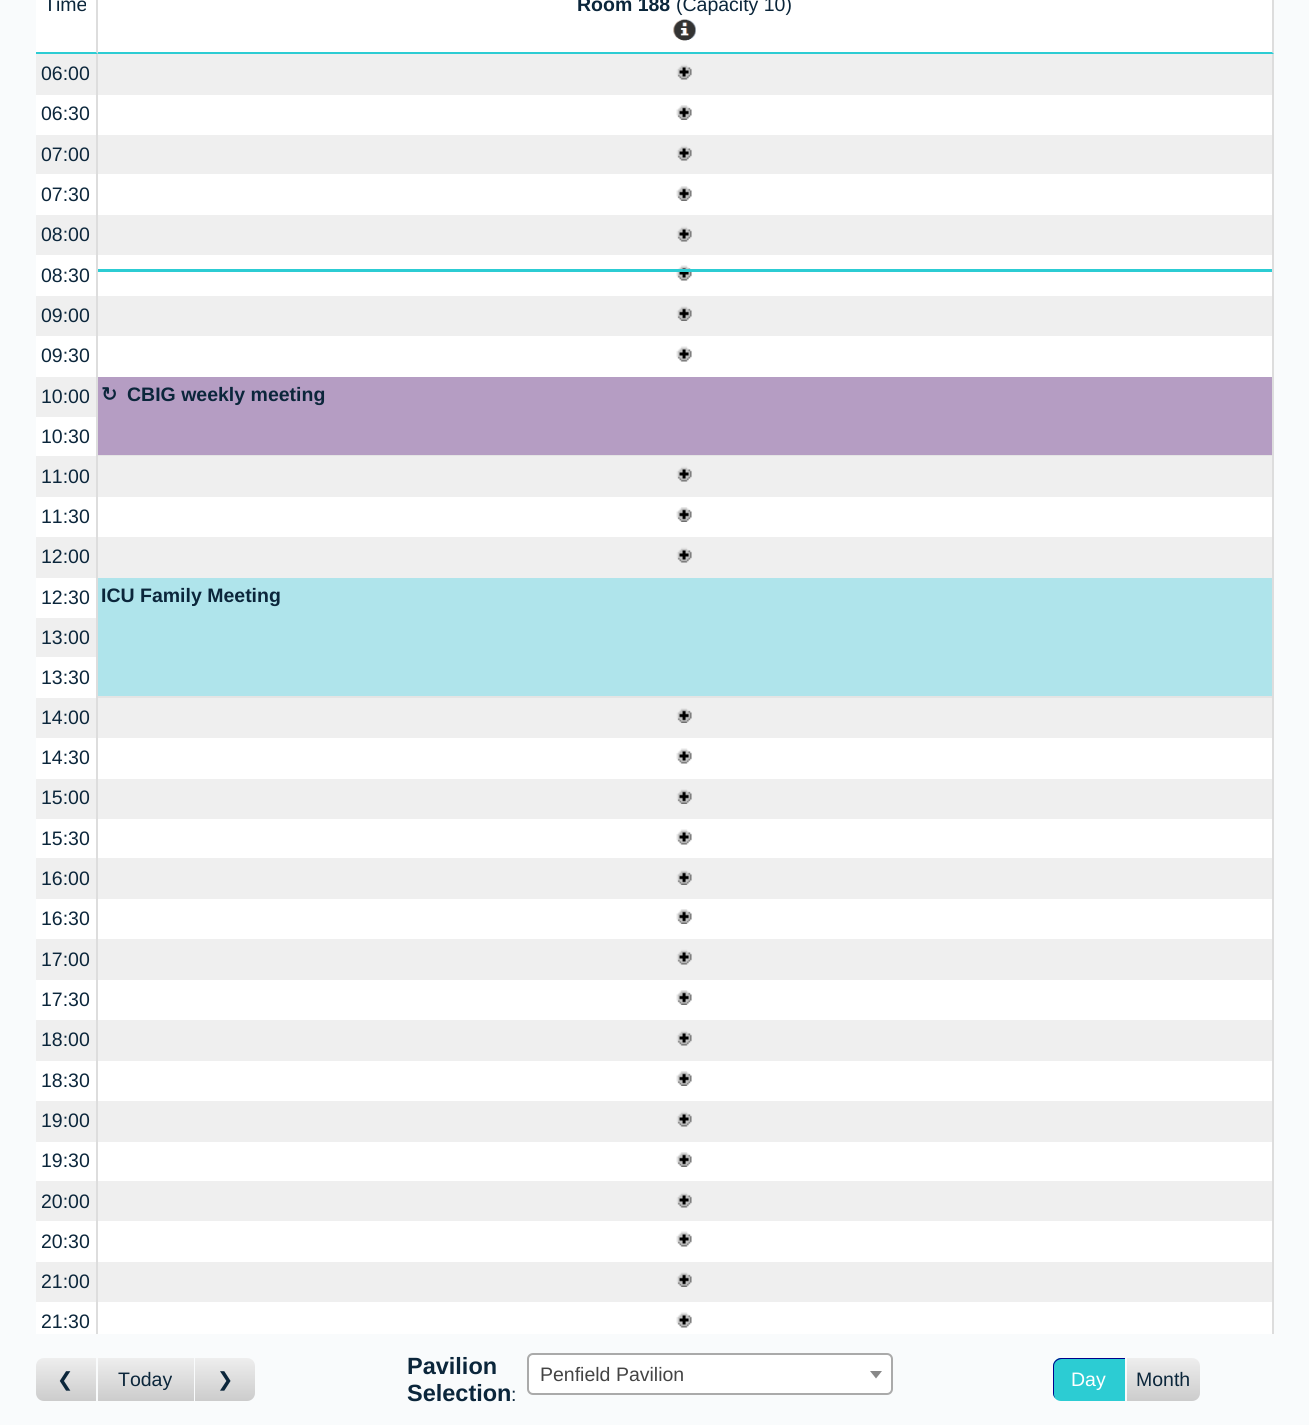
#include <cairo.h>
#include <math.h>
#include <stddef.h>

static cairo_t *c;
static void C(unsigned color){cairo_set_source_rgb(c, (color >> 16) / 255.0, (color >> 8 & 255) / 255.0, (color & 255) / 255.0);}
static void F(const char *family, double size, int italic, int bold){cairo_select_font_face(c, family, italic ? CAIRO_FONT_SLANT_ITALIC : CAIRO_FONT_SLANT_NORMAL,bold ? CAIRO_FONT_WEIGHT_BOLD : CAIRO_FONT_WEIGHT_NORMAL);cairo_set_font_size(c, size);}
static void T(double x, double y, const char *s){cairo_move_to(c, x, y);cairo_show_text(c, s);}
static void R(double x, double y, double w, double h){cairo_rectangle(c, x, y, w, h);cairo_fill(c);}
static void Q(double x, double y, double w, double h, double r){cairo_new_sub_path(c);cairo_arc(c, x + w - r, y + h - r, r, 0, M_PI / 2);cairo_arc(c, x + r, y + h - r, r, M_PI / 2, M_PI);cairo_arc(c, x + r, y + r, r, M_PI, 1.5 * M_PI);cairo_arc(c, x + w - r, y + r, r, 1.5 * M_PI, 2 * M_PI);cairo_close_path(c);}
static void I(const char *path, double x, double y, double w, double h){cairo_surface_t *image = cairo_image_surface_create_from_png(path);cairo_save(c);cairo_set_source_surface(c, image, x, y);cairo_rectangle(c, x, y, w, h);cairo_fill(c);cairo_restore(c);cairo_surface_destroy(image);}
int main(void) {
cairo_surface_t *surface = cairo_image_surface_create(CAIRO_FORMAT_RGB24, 1309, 1425);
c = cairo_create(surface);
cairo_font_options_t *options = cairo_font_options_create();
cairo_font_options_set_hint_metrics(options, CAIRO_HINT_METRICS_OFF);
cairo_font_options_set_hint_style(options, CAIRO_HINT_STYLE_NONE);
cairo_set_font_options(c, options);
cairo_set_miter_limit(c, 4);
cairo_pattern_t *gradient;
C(0xf9fbfc);
cairo_paint(c);
C(0xffffff);
R(36,0,60,52);
C(0xdddddd);
cairo_new_path(c);
cairo_move_to(c,98,-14);
cairo_line_to(c,98,54);
cairo_line_to(c,96,52);
cairo_line_to(c,96,-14);
cairo_close_path(c);
cairo_fill(c);
C(0x2cccd3);
cairo_new_path(c);
cairo_move_to(c,98,54);
cairo_line_to(c,96,52);
cairo_line_to(c,36,52);
cairo_line_to(c,36,54);
cairo_close_path(c);
cairo_fill(c);
F("Liberation Sans",19.5,0,0);
C(0x0b263b);
T(44,11,"Time");
C(0xffffff);
cairo_new_path(c);
cairo_move_to(c,98,-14);
cairo_line_to(c,1266,-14);
cairo_curve_to(c,1269,-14,1272,-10,1272,-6);
cairo_line_to(c,1272,52);
cairo_line_to(c,98,52);
cairo_close_path(c);
cairo_fill(c);
C(0xdddddd);
cairo_new_path(c);
cairo_move_to(c,1272,52);
cairo_line_to(c,1272,-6);
cairo_curve_to(c,1272,-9,1270,-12,1268,-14);
cairo_line_to(c,1269,-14);
cairo_curve_to(c,1271,-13,1273,-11,1274,-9);
cairo_line_to(c,1274,54);
cairo_close_path(c);
cairo_fill(c);
C(0x2cccd3);
cairo_new_path(c);
cairo_move_to(c,1274,54);
cairo_line_to(c,1272,52);
cairo_line_to(c,98,52);
cairo_line_to(c,98,54);
cairo_close_path(c);
cairo_fill(c);
F("Liberation Sans",19.5,0,1);
C(0x0b263b);
T(577,11,"Room 188");
F("Liberation Sans",19.5,0,0);
T(676,11,"(Capacity 10)");
I("1.png",673,19,23,22);
C(0xefefef);
R(36,54,60,41);
C(0xdddddd);
R(96,54,2,1280);
C(0x0b263b);
T(41,80,"06:00");
C(0xefefef);
R(98,54,1174,41);
C(0xdddddd);
R(1272,54,2,1280);
I("2.png",676,64,16,16);
C(0xffffff);
R(36,95,60,40);
C(0x0b263b);
T(41,120,"06:30");
C(0xffffff);
R(98,95,1174,40);
I("3.png",676,105,16,15);
C(0xefefef);
R(36,135,60,39);
C(0x0b263b);
T(41,161,"07:00");
C(0xefefef);
R(98,135,1174,39);
I("2.png",676,145,16,16);
C(0xffffff);
R(36,174,60,41);
C(0x0b263b);
T(41,201,"07:30");
C(0xffffff);
R(98,174,1174,41);
I("3.png",676,186,16,15);
C(0xefefef);
R(36,215,60,40);
C(0x0b263b);
T(41,241,"08:00");
C(0xefefef);
R(98,215,1174,40);
I("2.png",676,226,16,16);
C(0xffffff);
R(36,255,60,41);
C(0x0b263b);
T(41,282,"08:30");
C(0xffffff);
R(98,255,1174,41);
I("4.png",676,265,16,16);
C(0xefefef);
R(36,296,60,40);
C(0x0b263b);
T(41,322,"09:00");
C(0xefefef);
R(98,296,1174,40);
I("5.png",676,306,16,15);
C(0xffffff);
R(36,336,60,41);
C(0x0b263b);
T(41,362,"09:30");
C(0xffffff);
R(98,336,1174,41);
I("4.png",676,346,16,16);
C(0xefefef);
R(36,377,60,40);
C(0x0b263b);
T(41,403,"10:00");
C(0xb59dc3);
R(98,377,1174,78);
C(0xe4e4e4);
R(98,455,1174,1);
F("DejaVu Sans",19.5,0,1);
C(0x0b263b);
T(101,401,"↻");
F("Liberation Sans",19.5,0,1);
T(127,401,"CBIG weekly meeting");
C(0xffffff);
R(36,417,60,39);
F("Liberation Sans",19.5,0,0);
C(0x0b263b);
T(41,443,"10:30");
C(0xefefef);
R(36,456,60,41);
C(0x0b263b);
T(41,483,"11:00");
C(0xefefef);
R(98,456,1174,41);
I("2.png",676,466,16,16);
C(0xffffff);
R(36,497,60,40);
C(0x0b263b);
T(41,523,"11:30");
C(0xffffff);
R(98,497,1174,40);
I("3.png",676,507,16,15);
C(0xefefef);
R(36,537,60,41);
C(0x0b263b);
T(41,563,"12:00");
C(0xefefef);
R(98,537,1174,41);
I("2.png",676,547,16,16);
C(0xffffff);
R(36,578,60,40);
C(0x0b263b);
T(41,604,"12:30");
C(0xafe4eb);
R(98,578,1174,118);
C(0xe4e4e4);
R(98,696,1174,2);
F("Liberation Sans",19.5,0,1);
C(0x0b263b);
T(101,602,"ICU Family Meeting");
C(0xefefef);
R(36,618,60,39);
F("Liberation Sans",19.5,0,0);
C(0x0b263b);
T(41,644,"13:00");
C(0xffffff);
R(36,657,60,41);
C(0x0b263b);
T(41,684,"13:30");
C(0xefefef);
R(36,698,60,40);
C(0x0b263b);
T(41,724,"14:00");
C(0xefefef);
R(98,698,1174,40);
I("5.png",676,708,16,15);
C(0xffffff);
R(36,738,60,41);
C(0x0b263b);
T(41,764,"14:30");
C(0xffffff);
R(98,738,1174,41);
I("4.png",676,748,16,16);
C(0xefefef);
R(36,779,60,40);
C(0x0b263b);
T(41,804,"15:00");
C(0xefefef);
R(98,779,1174,40);
I("5.png",676,789,16,15);
C(0xffffff);
R(36,819,60,39);
C(0x0b263b);
T(41,845,"15:30");
C(0xffffff);
R(98,819,1174,39);
I("4.png",676,829,16,16);
C(0xefefef);
R(36,858,60,41);
C(0x0b263b);
T(41,885,"16:00");
C(0xefefef);
R(98,858,1174,41);
I("5.png",676,870,16,15);
C(0xffffff);
R(36,899,60,40);
C(0x0b263b);
T(41,925,"16:30");
C(0xffffff);
R(98,899,1174,40);
I("3.png",676,909,16,15);
C(0xefefef);
R(36,939,60,41);
C(0x0b263b);
T(41,966,"17:00");
C(0xefefef);
R(98,939,1174,41);
I("2.png",676,949,16,16);
C(0xffffff);
R(36,980,60,40);
C(0x0b263b);
T(41,1006,"17:30");
C(0xffffff);
R(98,980,1174,40);
I("3.png",676,990,16,15);
C(0xefefef);
R(36,1020,60,41);
C(0x0b263b);
T(41,1046,"18:00");
C(0xefefef);
R(98,1020,1174,41);
I("2.png",676,1030,16,16);
C(0xffffff);
R(36,1061,60,40);
C(0x0b263b);
T(41,1087,"18:30");
C(0xffffff);
R(98,1061,1174,40);
I("3.png",676,1071,16,15);
C(0xefefef);
R(36,1101,60,41);
C(0x0b263b);
T(41,1127,"19:00");
C(0xefefef);
R(98,1101,1174,41);
I("2.png",676,1111,16,16);
C(0xffffff);
R(36,1142,60,39);
C(0x0b263b);
T(41,1167,"19:30");
C(0xffffff);
R(98,1142,1174,39);
I("3.png",676,1152,16,15);
C(0xefefef);
R(36,1181,60,40);
C(0x0b263b);
T(41,1208,"20:00");
C(0xefefef);
R(98,1181,1174,40);
I("2.png",676,1192,16,16);
C(0xffffff);
R(36,1221,60,41);
C(0x0b263b);
T(41,1248,"20:30");
C(0xffffff);
R(98,1221,1174,41);
I("4.png",676,1231,16,16);
C(0xefefef);
R(36,1262,60,40);
C(0x0b263b);
T(41,1288,"21:00");
C(0xefefef);
R(98,1262,1174,40);
I("5.png",676,1272,16,15);
C(0xffffff);
R(36,1302,60,32);
C(0x0b263b);
T(41,1328,"21:30");
C(0xffffff);
R(98,1302,1174,32);
I("4.png",676,1312,16,16);
C(0x2cccd3);
R(98,269,1174,3);
gradient = cairo_pattern_create_linear(66,1358,66,1401);
cairo_pattern_add_color_stop_rgba(gradient,0,0.933,0.933,0.933,1);
cairo_pattern_add_color_stop_rgba(gradient,1,0.8,0.8,0.8,1);
cairo_set_source(c,gradient);
cairo_pattern_destroy(gradient);
cairo_new_path(c);
cairo_move_to(c,44,1358);
cairo_line_to(c,98,1358);
cairo_line_to(c,98,1401);
cairo_line_to(c,44,1401);
cairo_curve_to(c,39.5,1401,36,1397.5,36,1393);
cairo_line_to(c,36,1366);
cairo_curve_to(c,36,1361.5,39.5,1358,44,1358);
cairo_close_path(c);
cairo_fill(c);
C(0xf9fbfc);
R(96,1358,2,43);
F("DejaVu Sans",19.5,0,0);
C(0x0b263b);
T(57,1386,"❮");
gradient = cairo_pattern_create_linear(146,1358,146,1401);
cairo_pattern_add_color_stop_rgba(gradient,0,0.933,0.933,0.933,1);
cairo_pattern_add_color_stop_rgba(gradient,1,0.8,0.8,0.8,1);
cairo_set_source(c,gradient);
cairo_pattern_destroy(gradient);
R(98,1358,96,43);
F("Liberation Sans",19.5,0,0);
C(0x0b263b);
T(118,1386,"Today");
gradient = cairo_pattern_create_linear(225,1358,225,1401);
cairo_pattern_add_color_stop_rgba(gradient,0,0.933,0.933,0.933,1);
cairo_pattern_add_color_stop_rgba(gradient,1,0.8,0.8,0.8,1);
cairo_set_source(c,gradient);
cairo_pattern_destroy(gradient);
cairo_new_path(c);
cairo_move_to(c,195,1358);
cairo_line_to(c,247,1358);
cairo_curve_to(c,251.5,1358,255,1361.5,255,1366);
cairo_line_to(c,255,1393);
cairo_curve_to(c,255,1397.5,251.5,1401,247,1401);
cairo_line_to(c,195,1401);
cairo_close_path(c);
cairo_fill(c);
F("DejaVu Sans",19.5,0,0);
C(0x0b263b);
T(217,1386,"❯");
F("Liberation Sans",23.5,0,1);
T(407,1374,"Pavilion");
T(407,1401,"Selection");
F("Liberation Sans",19.5,0,0);
T(511,1401,":");
C(0xffffff);
Q(528,1354,364,40,5);
cairo_fill_preserve(c);
C(0xaaaaaa);
cairo_stroke(c);
C(0x444444);
T(540,1381,"Penfield Pavilion");
C(0x888888);
cairo_new_path(c);
cairo_move_to(c,870,1371);
cairo_line_to(c,882,1371);
cairo_line_to(c,876,1378.5);
cairo_close_path(c);
cairo_fill(c);
C(0x2cccd3);
cairo_new_path(c);
cairo_move_to(c,1061,1358);
cairo_line_to(c,1127,1358);
cairo_line_to(c,1127,1401);
cairo_line_to(c,1061,1401);
cairo_curve_to(c,1056.5,1401,1053,1397.5,1053,1393);
cairo_line_to(c,1053,1366);
cairo_curve_to(c,1053,1361.5,1056.5,1358,1061,1358);
cairo_close_path(c);
cairo_fill(c);
C(0x00008b);
cairo_new_path(c);
cairo_move_to(c,1062,1359);
cairo_line_to(c,1125,1359);
cairo_line_to(c,1125,1358);
cairo_line_to(c,1061,1358);
cairo_curve_to(c,1057,1358,1053,1362,1053,1366);
cairo_line_to(c,1053,1393);
cairo_curve_to(c,1053,1395,1054,1397,1055,1398);
cairo_line_to(c,1054,1395);
cairo_line_to(c,1054,1366);
cairo_curve_to(c,1054,1362,1058,1359,1062,1359);
cairo_close_path(c);
cairo_fill(c);
C(0xf9fbfc);
R(1125,1358,2,43);
C(0xffffff);
T(1071,1386,"Day");
gradient = cairo_pattern_create_linear(1163,1358,1163,1401);
cairo_pattern_add_color_stop_rgba(gradient,0,0.933,0.933,0.933,1);
cairo_pattern_add_color_stop_rgba(gradient,1,0.8,0.8,0.8,1);
cairo_set_source(c,gradient);
cairo_pattern_destroy(gradient);
cairo_new_path(c);
cairo_move_to(c,1127,1358);
cairo_line_to(c,1192,1358);
cairo_curve_to(c,1196.5,1358,1200,1361.5,1200,1366);
cairo_line_to(c,1200,1393);
cairo_curve_to(c,1200,1397.5,1196.5,1401,1192,1401);
cairo_line_to(c,1127,1401);
cairo_close_path(c);
cairo_fill(c);
C(0x0b263b);
T(1136,1386,"Month");
cairo_surface_write_to_png(surface, "o.png");
cairo_font_options_destroy(options);
cairo_destroy(c);
cairo_surface_destroy(surface);
return 0;
}
